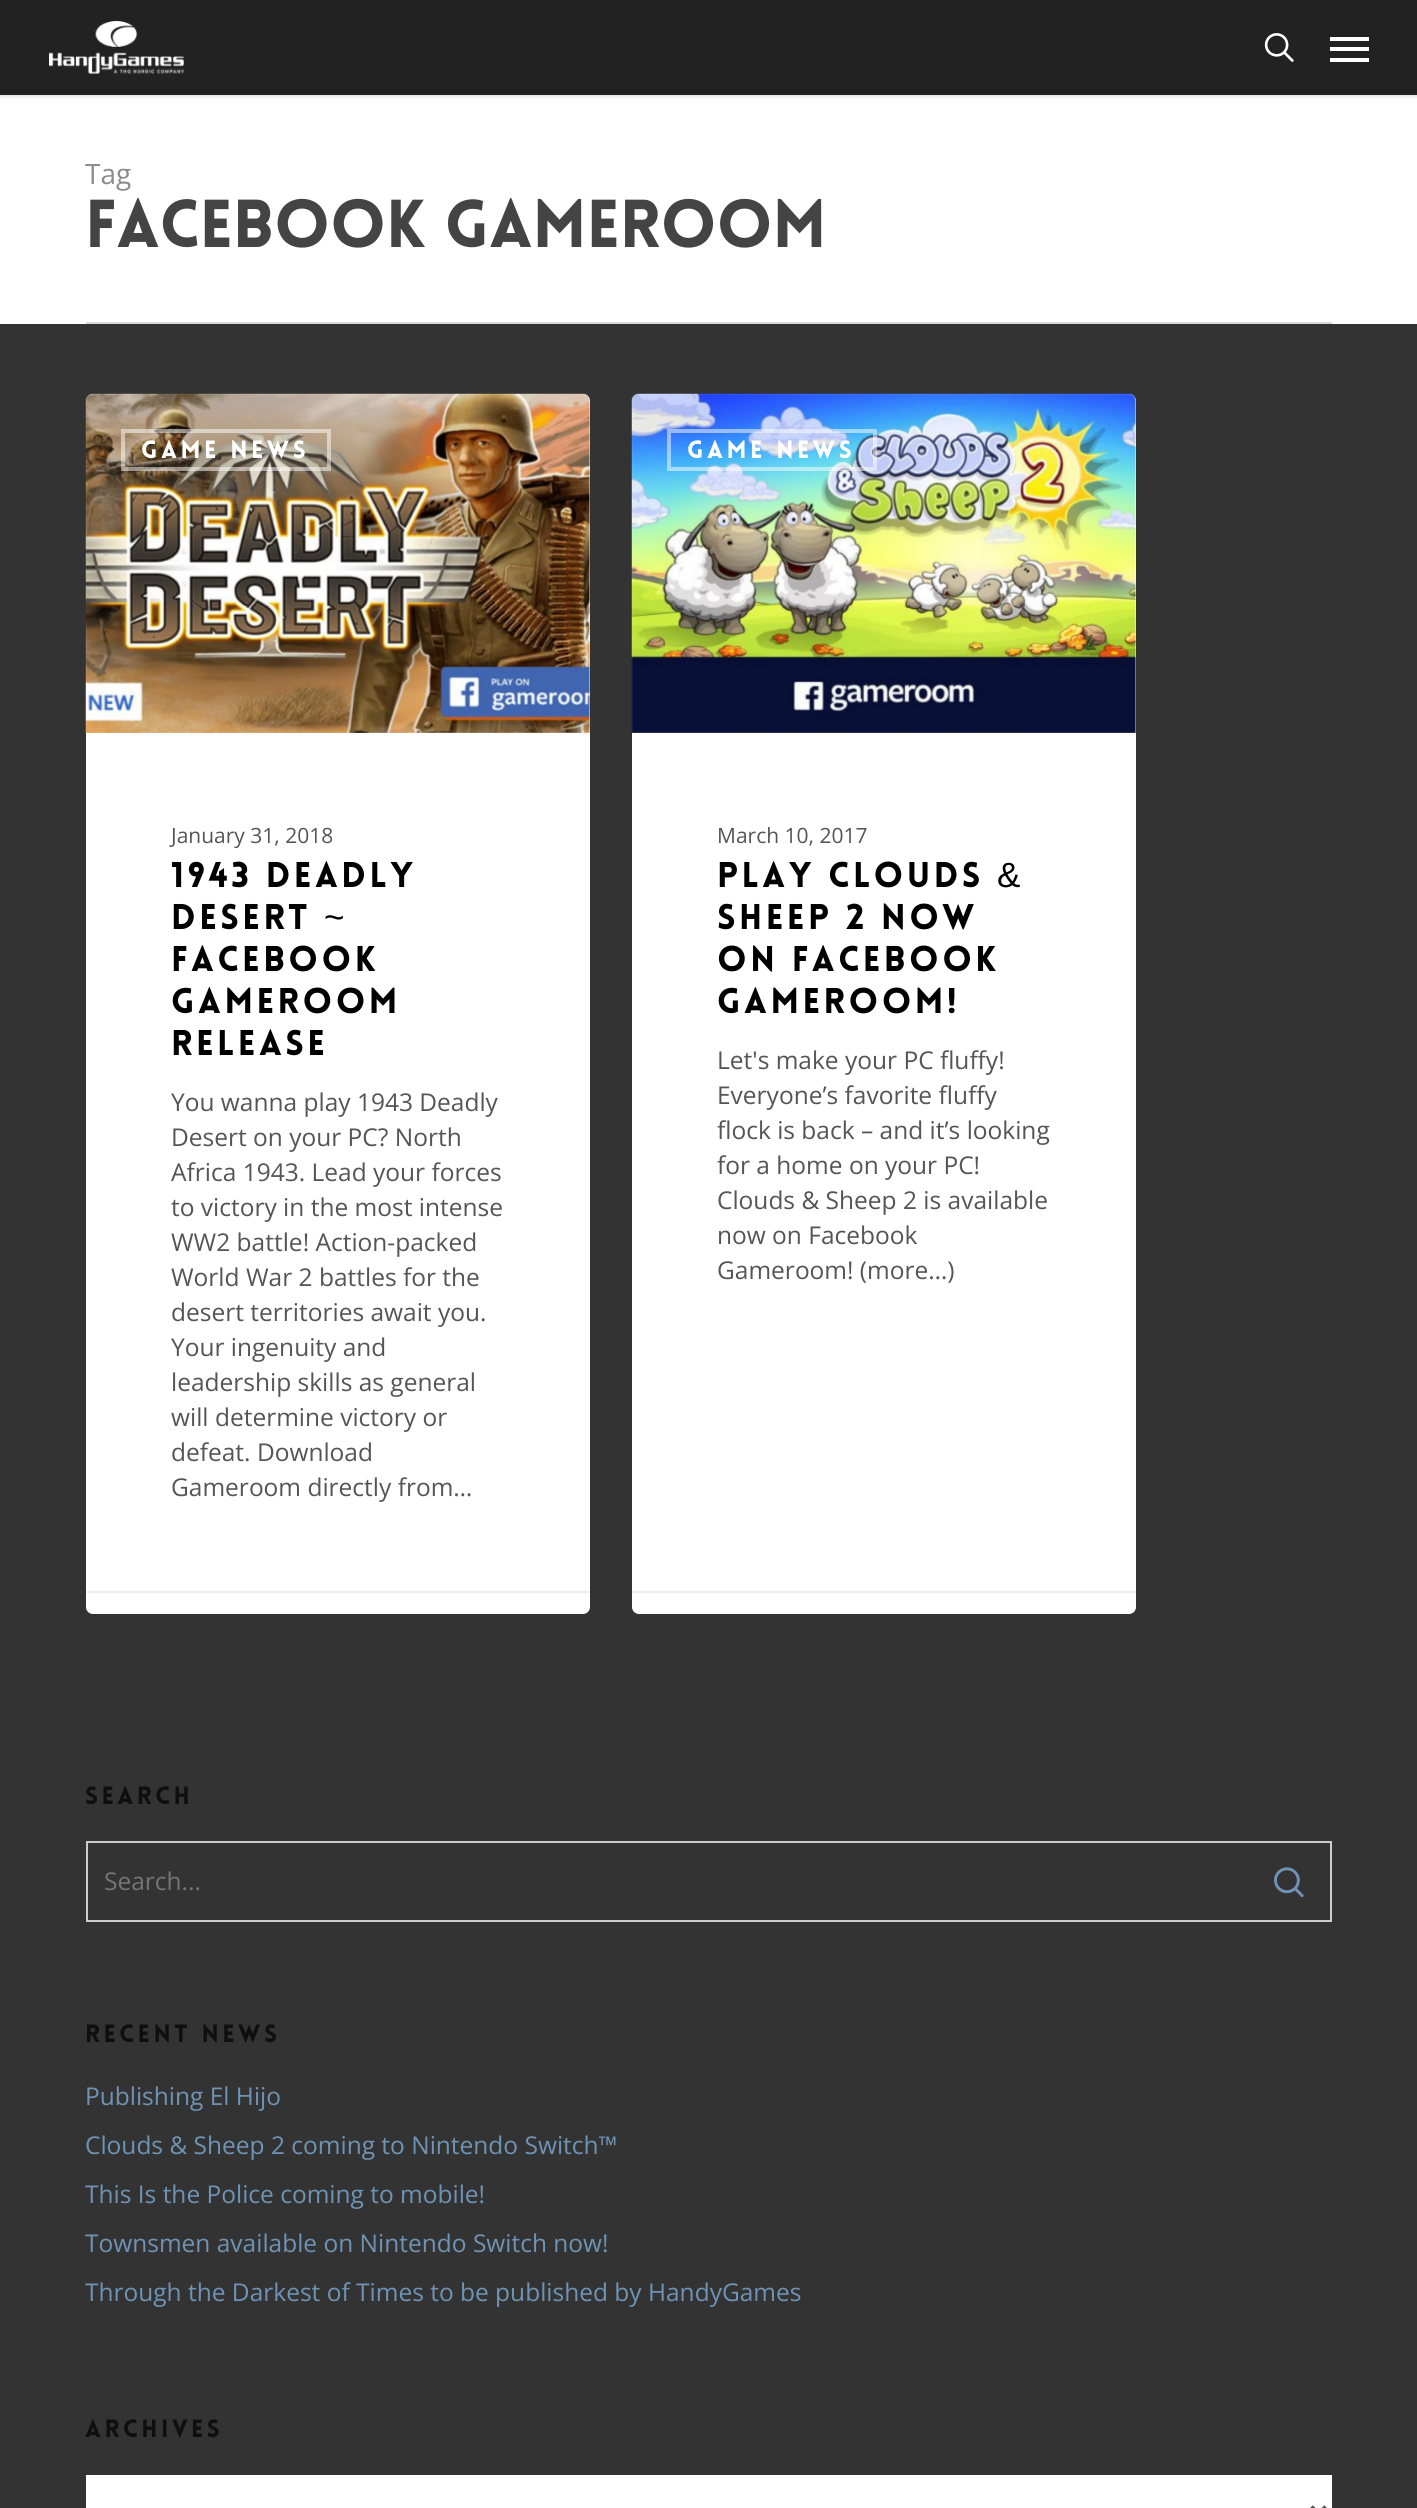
#include <cairo.h>
#include <math.h>
#include <stddef.h>

static cairo_t *c;
static void C(unsigned color){cairo_set_source_rgb(c, (color >> 16) / 255.0, (color >> 8 & 255) / 255.0, (color & 255) / 255.0);}
static void F(const char *family, double size, int italic, int bold){cairo_select_font_face(c, family, italic ? CAIRO_FONT_SLANT_ITALIC : CAIRO_FONT_SLANT_NORMAL,bold ? CAIRO_FONT_WEIGHT_BOLD : CAIRO_FONT_WEIGHT_NORMAL);cairo_set_font_size(c, size);}
static void T(double x, double y, const char *s){cairo_move_to(c, x, y);cairo_show_text(c, s);}
static void L(double x, double y, const char *s, double letter, double word){cairo_move_to(c, x, y);while (*s) {char ch[5] = {0};int n = 0;do ch[n++] = *s++; while ((*s & 0xC0) == 0x80);cairo_show_text(c, ch);cairo_rel_move_to(c, letter + word * (*ch == ' '), 0);}}
static void R(double x, double y, double w, double h){cairo_rectangle(c, x, y, w, h);cairo_fill(c);}
static void Q(double x, double y, double w, double h, double r){cairo_new_sub_path(c);cairo_arc(c, x + w - r, y + h - r, r, 0, M_PI / 2);cairo_arc(c, x + r, y + h - r, r, M_PI / 2, M_PI);cairo_arc(c, x + r, y + r, r, M_PI, 1.5 * M_PI);cairo_arc(c, x + w - r, y + r, r, 1.5 * M_PI, 2 * M_PI);cairo_close_path(c);}
static void S(double x, double y, double w, double h, double r, double blur, double alpha){cairo_push_group_with_content(c, CAIRO_CONTENT_ALPHA);cairo_set_operator(c, CAIRO_OPERATOR_SOURCE);for (int i = 15; i >= -15 && fmin(w, h) + blur * i / 3 > 0; i -= 2) {double e = blur * i / 6;cairo_set_source_rgba(c, 0, 0, 0, alpha * erfc((i - 1) / 8.5) / 2);Q(x - e, y - e, w + 2 * e, h + 2 * e, fmax(0, fmin(r + e + blur * .6, fmin(w, h) / 2 + e)));cairo_fill(c);}cairo_pattern_t *soft = cairo_pop_group(c);cairo_mask(c, soft);cairo_pattern_destroy(soft);}
static void I(const char *path, double x, double y, double w, double h){cairo_surface_t *image = cairo_image_surface_create_from_png(path);cairo_save(c);cairo_set_source_surface(c, image, x, y);cairo_rectangle(c, x, y, w, h);cairo_fill(c);cairo_restore(c);cairo_surface_destroy(image);}
int main(void) {
cairo_surface_t *surface = cairo_image_surface_create(CAIRO_FORMAT_RGB24, 1417, 2508);
c = cairo_create(surface);
cairo_font_options_t *options = cairo_font_options_create();
cairo_font_options_set_hint_metrics(options, CAIRO_HINT_METRICS_OFF);
cairo_font_options_set_hint_style(options, CAIRO_HINT_STYLE_NONE);
cairo_set_font_options(c, options);
cairo_set_miter_limit(c, 4);
C(0xffffff);
cairo_paint(c);
C(0x000000);
S(0,0,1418,95,0,2.5,.22);
C(0x222222);
R(0,0,1417,95);
I("1.png",49,21,135,53);
I("2.png",1264,33,30,29);
C(0xffffff);
R(1330,37,39,4);
R(1330,58,39,4);
R(1330,47,39,4);
C(0xd9d9d9);
R(86,322,1246,2);
F("Open Sans",28,0,0);
C(0x8c8c8c);
T(85,184,"Tag");
F("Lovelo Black",66.2,0,0);
C(0x444444);
T(85,247,"Facebook Gameroom");
C(0x333333);
R(0,324,1417,2184);
C(0xffffff);
Q(86,394,504,1220,7);
cairo_fill(c);
I("3.png",85,393,505,341);
cairo_rectangle(c,123,431,206,38);
cairo_set_source_rgba(c,1,1,1,0.5);
cairo_set_line_width(c,4);
cairo_stroke(c);
F("Lovelo Black",24.5,0,0);
C(0xffffff);
L(141,458,"GAME NEWS",3.5,0);
R(86,733,504,1);
F("Open Sans",21,0,0);
C(0x555555);
T(171,843,"January 31, 2018");
F("Lovelo Black",35,0,0);
C(0x000000);
L(171,887,"1943 Deadly",3.5,0);
L(171,929,"Desert",3.5,0);
F("Liberation Sans",35,0,0);
L(324,929,"~",3.5,0);
F("Lovelo Black",35,0,0);
L(171,971,"Facebook",3.5,0);
L(171,1013,"Gameroom",3.5,0);
L(171,1055,"release",3.5,0);
F("Open Sans",24.5,0,0);
C(0x555555);
T(171,1111,"You wanna play 1943 Deadly");
T(171,1146,"Desert on your PC? North");
T(171,1181,"Africa 1943. Lead your forces");
T(171,1216,"to victory in the most intense");
T(171,1251,"WW2 battle! Action-packed");
T(171,1286,"World War 2 battles for the");
T(171,1321,"desert territories await you.");
T(171,1356,"Your ingenuity and");
T(171,1391,"leadership skills as general");
T(171,1426,"will determine victory or");
T(171,1461,"defeat. Download");
T(171,1496,"Gameroom directly from…");
C(0xf0f0f0);
R(86,1591,504,2);
C(0xffffff);
Q(632,394,504,1220,7);
cairo_fill(c);
I("4.png",631,393,505,341);
cairo_rectangle(c,669,431,206,38);
cairo_set_source_rgba(c,1,1,1,0.5);
cairo_stroke(c);
F("Lovelo Black",24.5,0,0);
C(0xffffff);
L(687,458,"GAME NEWS",3.5,0);
R(632,733,504,1);
F("Open Sans",21,0,0);
C(0x555555);
T(717,843,"March 10, 2017");
F("Lovelo Black",35,0,0);
C(0x000000);
L(717,887,"Play Clouds",3.5,0);
F("Liberation Sans",35,0,0);
L(997,887,"&",3.5,0);
F("Lovelo Black",35,0,0);
L(717,929,"Sheep 2 now",3.5,0);
L(717,971,"on Facebook",3.5,0);
L(717,1013,"Gameroom!",3.5,0);
F("Open Sans",24.5,0,0);
C(0x555555);
T(717,1069,"Let's make your PC fluffy!");
T(717,1104,"Everyone’s favorite fluffy");
T(717,1139,"flock is back – and it’s looking");
T(717,1174,"for a home on your PC!");
T(717,1209,"Clouds & Sheep 2 is available");
T(717,1244,"now on Facebook");
T(717,1279,"Gameroom! (more…)");
C(0xf0f0f0);
R(632,1591,504,2);
F("Lovelo Black",24.5,0,0);
C(0x0f0f0f);
L(85,1804,"SEARCH",3.5,0);
cairo_rectangle(c,87,1842,1244,79);
C(0xcccccc);
cairo_set_line_width(c,2);
cairo_stroke(c);
F("Open Sans",24.5,0,0);
C(0x757575);
T(104,1890,"Search...");
I("5.png",1274,1867,30,31);
F("Lovelo Black",24.5,0,0);
C(0x0f0f0f);
L(85,2042,"RECENT NEWS",3.5,0);
F("Open Sans",24.5,0,0);
C(0x6f93b5);
T(85,2105,"Publishing El Hijo");
T(85,2154,"Clouds & Sheep 2 coming to Nintendo Switch™");
T(85,2203,"This Is the Police coming to mobile!");
T(85,2252,"Townsmen available on Nintendo Switch now!");
T(85,2301,"Through the Darkest of Times to be published by HandyGames");
F("Lovelo Black",24.5,0,0);
C(0x0f0f0f);
L(85,2437,"ARCHIVES",3.5,0);
C(0xffffff);
R(86,2475,1246,33);
cairo_new_path(c);
cairo_move_to(c,1311.5,2506.5);
cairo_line_to(c,1318.5,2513.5);
cairo_line_to(c,1325.5,2506.5);
C(0x555555);
cairo_set_line_width(c,3.5);
cairo_stroke(c);
cairo_surface_write_to_png(surface, "o.png");
cairo_font_options_destroy(options);
cairo_destroy(c);
cairo_surface_destroy(surface);
return 0;
}
